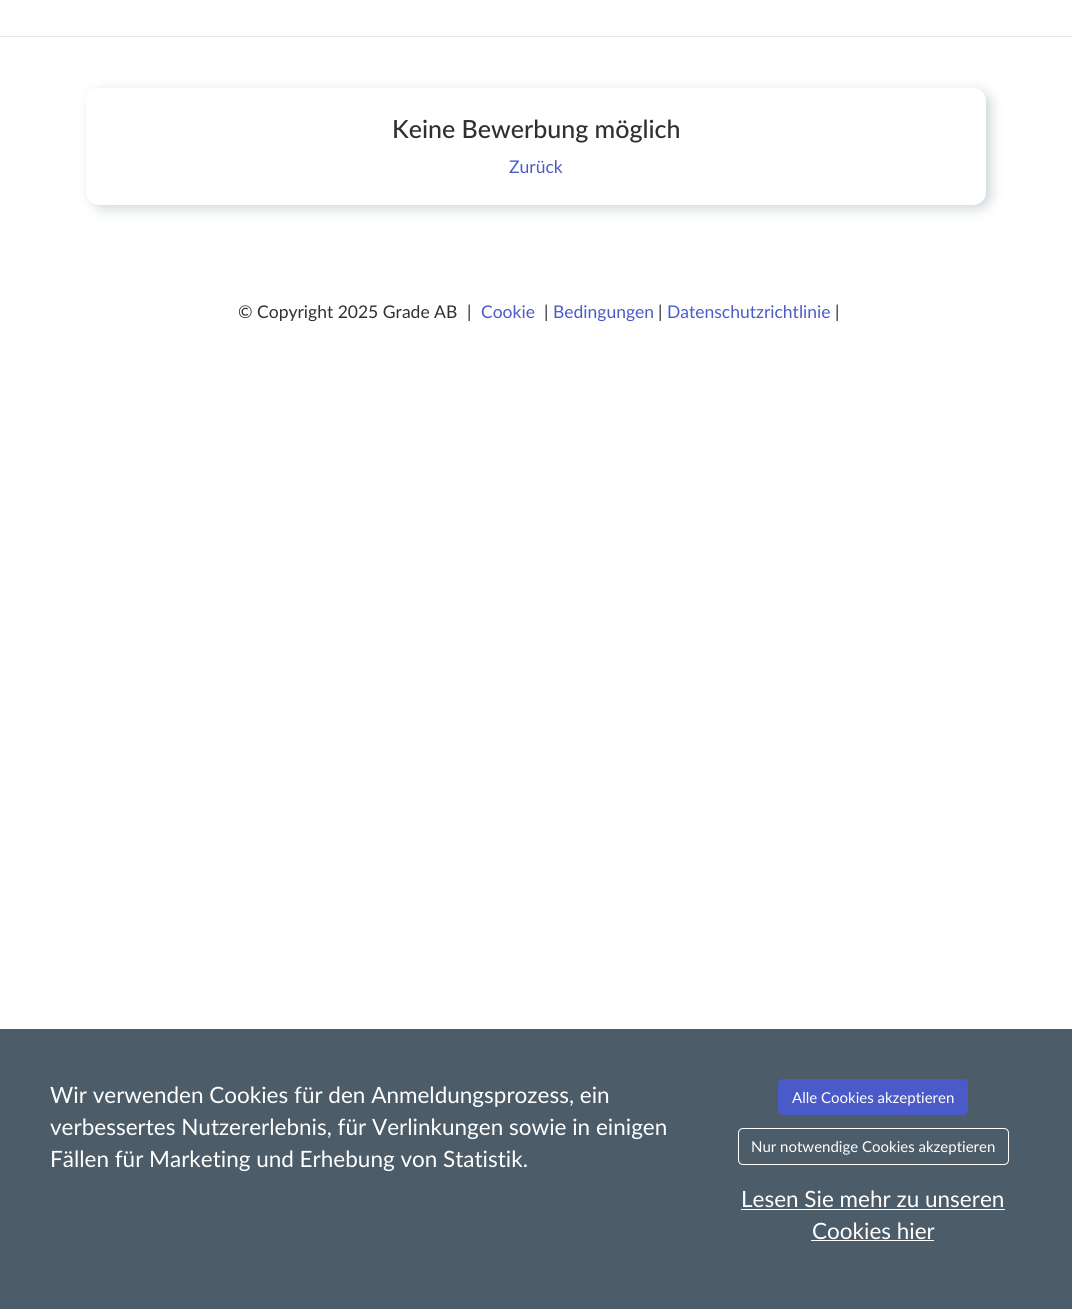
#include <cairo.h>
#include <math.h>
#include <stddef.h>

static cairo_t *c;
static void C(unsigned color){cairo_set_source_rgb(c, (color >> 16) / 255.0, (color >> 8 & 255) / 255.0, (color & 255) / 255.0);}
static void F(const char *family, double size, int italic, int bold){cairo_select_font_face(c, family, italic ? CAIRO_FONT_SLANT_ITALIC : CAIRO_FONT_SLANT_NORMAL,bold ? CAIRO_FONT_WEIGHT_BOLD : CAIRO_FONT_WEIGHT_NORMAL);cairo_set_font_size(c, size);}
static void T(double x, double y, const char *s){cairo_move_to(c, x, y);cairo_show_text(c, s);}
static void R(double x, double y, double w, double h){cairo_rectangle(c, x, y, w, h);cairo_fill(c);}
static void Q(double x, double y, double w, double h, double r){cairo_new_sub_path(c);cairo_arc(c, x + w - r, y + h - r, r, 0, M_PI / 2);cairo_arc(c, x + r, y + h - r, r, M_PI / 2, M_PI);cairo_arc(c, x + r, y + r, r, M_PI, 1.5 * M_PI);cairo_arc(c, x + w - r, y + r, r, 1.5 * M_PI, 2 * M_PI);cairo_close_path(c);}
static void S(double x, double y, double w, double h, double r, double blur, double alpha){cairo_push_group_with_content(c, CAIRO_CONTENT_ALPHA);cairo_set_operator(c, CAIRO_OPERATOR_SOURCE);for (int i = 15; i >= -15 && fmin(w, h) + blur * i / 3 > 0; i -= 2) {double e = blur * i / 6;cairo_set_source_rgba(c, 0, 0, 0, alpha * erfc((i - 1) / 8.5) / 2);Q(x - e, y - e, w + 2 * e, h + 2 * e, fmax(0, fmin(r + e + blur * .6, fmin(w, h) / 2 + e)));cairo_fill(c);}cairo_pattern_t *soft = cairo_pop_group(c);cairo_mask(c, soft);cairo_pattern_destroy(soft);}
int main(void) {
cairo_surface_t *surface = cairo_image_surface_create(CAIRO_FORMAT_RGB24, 1072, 1309);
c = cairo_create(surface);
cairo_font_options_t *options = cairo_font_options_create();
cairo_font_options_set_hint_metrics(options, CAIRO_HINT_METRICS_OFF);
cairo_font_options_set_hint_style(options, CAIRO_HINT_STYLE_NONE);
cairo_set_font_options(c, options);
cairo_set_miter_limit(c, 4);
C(0xffffff);
cairo_paint(c);
C(0xe7e7e7);
R(0,36,1072,1);
C(0x0b3e4a);
S(91,91,900,118,13,6,.2);
C(0xffffff);
Q(86,88,900,117,13);
cairo_fill(c);
F("Lato Medium",25,0,0);
C(0x2f3030);
T(392,138,"Keine Bewerbung möglich");
F("Lato",17.5,0,0);
C(0x4a5bc9);
T(509,173,"Zurück");
C(0x2f3030);
T(238,318,"© Copyright 2025 Grade AB");
T(467,318,"|");
C(0x4a5bc9);
T(481,318,"Cookie");
C(0x2f3030);
T(544,318,"|");
C(0x4a5bc9);
T(553,318,"Bedingungen");
C(0x2f3030);
T(658,318,"|");
C(0x4a5bc9);
T(667,318,"Datenschutzrichtlinie");
C(0x2f3030);
T(835,318,"|");
C(0x4c5c68);
R(0,1029,1072,280);
F("Lato",22.5,0,0);
C(0xffffff);
T(50,1103,"Wir verwenden Cookies für den Anmeldungsprozess, ein");
T(50,1135,"verbessertes Nutzererlebnis, für Verlinkungen sowie in einigen");
T(50,1167,"Fällen für Marketing und Erhebung von Statistik.");
C(0x4a5bc9);
Q(778.5,1079.5,189,35,4.5);
cairo_fill_preserve(c);
cairo_set_line_width(c,1);
cairo_stroke(c);
F("Lato",15,0,0);
C(0xffffff);
T(792,1103,"Alle Cookies akzeptieren");
Q(738.5,1128.5,270,36,4.5);
cairo_stroke(c);
T(751,1152,"Nur notwendige Cookies akzeptieren");
F("Lato",22.5,0,0);
T(741,1207,"Lesen Sie mehr zu unseren");
R(741,1209,264,1);
T(812,1239,"Cookies hier");
R(811,1240,123,1);
cairo_surface_write_to_png(surface, "o.png");
cairo_font_options_destroy(options);
cairo_destroy(c);
cairo_surface_destroy(surface);
return 0;
}
